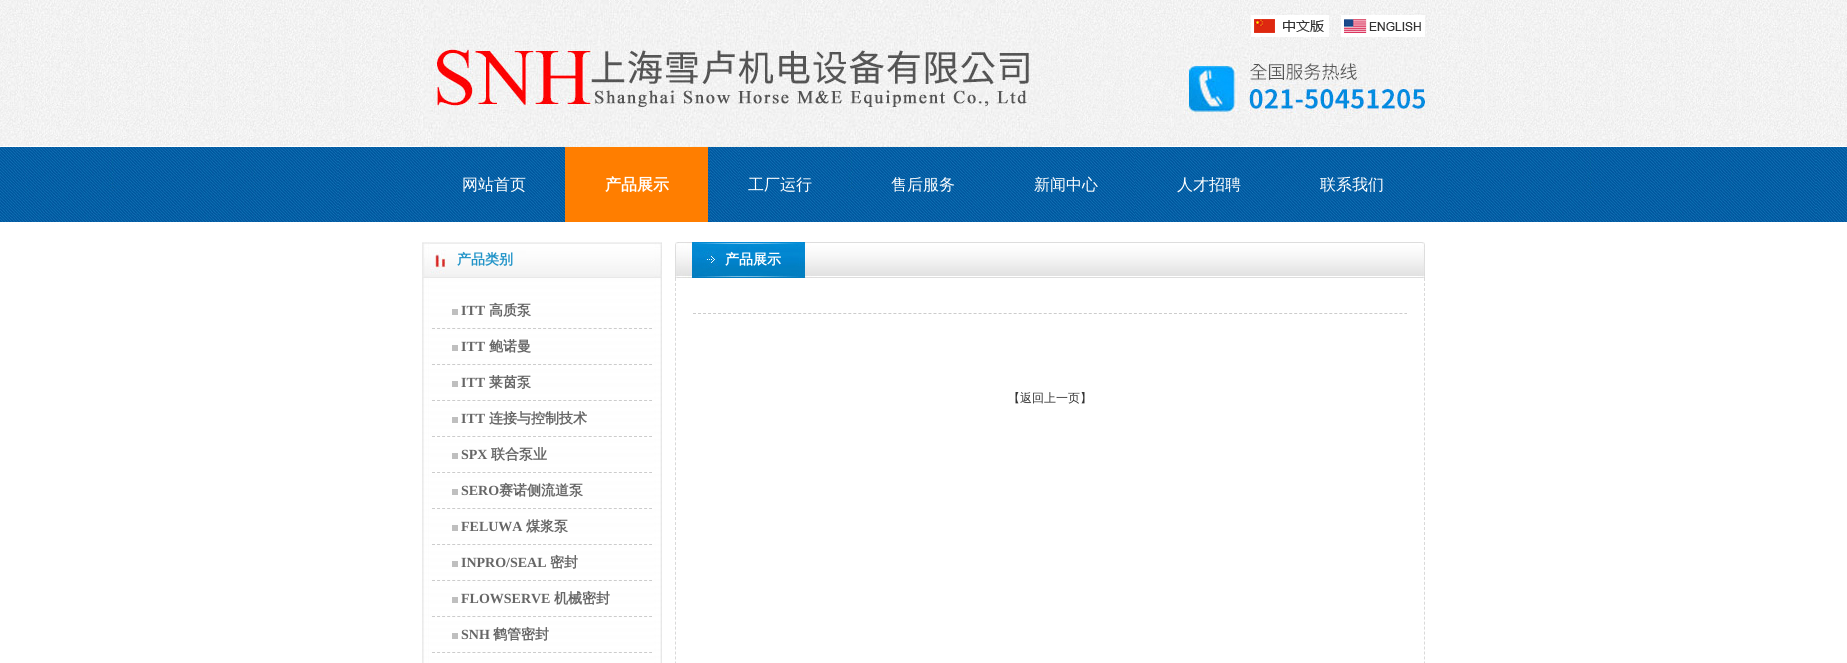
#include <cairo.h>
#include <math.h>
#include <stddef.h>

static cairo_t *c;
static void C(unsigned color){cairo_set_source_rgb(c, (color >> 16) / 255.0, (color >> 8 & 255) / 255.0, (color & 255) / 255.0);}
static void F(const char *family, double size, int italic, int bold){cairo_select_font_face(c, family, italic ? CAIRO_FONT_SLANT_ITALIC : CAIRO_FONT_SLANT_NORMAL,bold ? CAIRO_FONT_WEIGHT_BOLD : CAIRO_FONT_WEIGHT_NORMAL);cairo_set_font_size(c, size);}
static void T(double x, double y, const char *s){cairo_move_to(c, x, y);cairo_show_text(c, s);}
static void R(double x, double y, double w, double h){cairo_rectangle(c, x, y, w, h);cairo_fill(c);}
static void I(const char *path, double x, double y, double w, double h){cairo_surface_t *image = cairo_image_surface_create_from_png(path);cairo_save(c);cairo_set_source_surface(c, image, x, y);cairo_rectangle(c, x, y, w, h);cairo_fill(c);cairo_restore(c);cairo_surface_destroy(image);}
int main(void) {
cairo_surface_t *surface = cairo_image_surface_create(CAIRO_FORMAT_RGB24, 1847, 663);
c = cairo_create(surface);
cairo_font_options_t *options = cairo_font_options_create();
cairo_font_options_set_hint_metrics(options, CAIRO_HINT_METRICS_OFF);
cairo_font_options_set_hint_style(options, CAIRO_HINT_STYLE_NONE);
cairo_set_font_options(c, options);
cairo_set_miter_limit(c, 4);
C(0xffffff);
cairo_paint(c);
I("1.png",0,0,1847,146);
I("2.png",422,0,620,147);
I("3.png",1251,15,78,22);
I("4.png",1341,15,84,22);
I("5.png",1042,41,383,100);
I("6.png",0,147,1847,75);
F("WenQuanYi Zen Hei Medium",16,0,0);
C(0xffffff);
T(462,190,"网站首页");
C(0xff7e00);
R(565,147,143,75);
F("WenQuanYi Zen Hei",16,0,1);
C(0xffffff);
T(605,190,"产品展示");
F("WenQuanYi Zen Hei Medium",16,0,0);
T(748,190,"工厂运行");
T(891,190,"售后服务");
T(1034,190,"新闻中心");
T(1177,190,"人才招聘");
T(1320,190,"联系我们");
I("7.png",422,242,240,36);
F("WenQuanYi Zen Hei",14,0,1);
C(0x2294c8);
T(457,264,"产品类别");
I("8.png",422,278,240,385);
cairo_new_path(c);
cairo_move_to(c,432,328.5);
cairo_line_to(c,652,328.5);
C(0xcccccc);
cairo_set_line_width(c,1);
cairo_set_dash(c,(double[]){3,2.05},2,0);
cairo_stroke(c);
C(0xbfbfbf);
R(452,309,6,6);
F("Liberation Serif",14,0,1);
C(0x666666);
T(461,315,"ITT");
F("WenQuanYi Zen Hei",14,0,1);
T(489,315,"高质泵");
cairo_new_path(c);
cairo_move_to(c,432,364.5);
cairo_line_to(c,652,364.5);
C(0xcccccc);
cairo_stroke(c);
C(0xbfbfbf);
R(452,345,6,6);
F("Liberation Serif",14,0,1);
C(0x666666);
T(461,351,"ITT");
F("WenQuanYi Zen Hei",14,0,1);
T(489,351,"鲍诺曼");
cairo_new_path(c);
cairo_move_to(c,432,400.5);
cairo_line_to(c,652,400.5);
C(0xcccccc);
cairo_stroke(c);
C(0xbfbfbf);
R(452,381,6,6);
F("Liberation Serif",14,0,1);
C(0x666666);
T(461,387,"ITT");
F("WenQuanYi Zen Hei",14,0,1);
T(489,387,"莱茵泵");
cairo_new_path(c);
cairo_move_to(c,432,436.5);
cairo_line_to(c,652,436.5);
C(0xcccccc);
cairo_stroke(c);
C(0xbfbfbf);
R(452,417,6,6);
F("Liberation Serif",14,0,1);
C(0x666666);
T(461,423,"ITT");
F("WenQuanYi Zen Hei",14,0,1);
T(489,423,"连接与控制技术");
cairo_new_path(c);
cairo_move_to(c,432,472.5);
cairo_line_to(c,652,472.5);
C(0xcccccc);
cairo_stroke(c);
C(0xbfbfbf);
R(452,453,6,6);
F("Liberation Serif",14,0,1);
C(0x666666);
T(461,459,"SPX");
F("WenQuanYi Zen Hei",14,0,1);
T(491,459,"联合泵业");
cairo_new_path(c);
cairo_move_to(c,432,508.5);
cairo_line_to(c,652,508.5);
C(0xcccccc);
cairo_stroke(c);
C(0xbfbfbf);
R(452,489,6,6);
F("Liberation Serif",14,0,1);
C(0x666666);
T(461,495,"SERO");
F("WenQuanYi Zen Hei",14,0,1);
T(499,495,"赛诺侧流道泵");
cairo_new_path(c);
cairo_move_to(c,432,544.5);
cairo_line_to(c,652,544.5);
C(0xcccccc);
cairo_stroke(c);
C(0xbfbfbf);
R(452,525,6,6);
F("Liberation Serif",14,0,1);
C(0x666666);
T(461,531,"FELUWA");
F("WenQuanYi Zen Hei",14,0,1);
T(526,531,"煤浆泵");
cairo_new_path(c);
cairo_move_to(c,432,580.5);
cairo_line_to(c,652,580.5);
C(0xcccccc);
cairo_stroke(c);
C(0xbfbfbf);
R(452,561,6,6);
F("Liberation Serif",14,0,1);
C(0x666666);
T(461,567,"INPRO/SEAL");
F("WenQuanYi Zen Hei",14,0,1);
T(550,567,"密封");
cairo_new_path(c);
cairo_move_to(c,432,616.5);
cairo_line_to(c,652,616.5);
C(0xcccccc);
cairo_stroke(c);
C(0xbfbfbf);
R(452,597,6,6);
F("Liberation Serif",14,0,1);
C(0x666666);
T(461,603,"FLOWSERVE");
F("WenQuanYi Zen Hei",14,0,1);
T(554,603,"机械密封");
cairo_new_path(c);
cairo_move_to(c,432,652.5);
cairo_line_to(c,652,652.5);
C(0xcccccc);
cairo_stroke(c);
C(0xbfbfbf);
R(452,633,6,6);
F("Liberation Serif",14,0,1);
C(0x666666);
T(461,639,"SNH");
F("WenQuanYi Zen Hei",14,0,1);
T(493,639,"鹤管密封");
I("9.png",675,242,750,36);
C(0xffffff);
T(725,264,"产品展示");
cairo_new_path(c);
cairo_move_to(c,1424.5,278);
cairo_line_to(c,1424.5,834);
C(0xd9d9d9);
cairo_set_dash(c,(double[]){3,1.98},2,0);
cairo_stroke(c);
cairo_new_path(c);
cairo_move_to(c,675.5,278);
cairo_line_to(c,675.5,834);
cairo_stroke(c);
cairo_new_path(c);
cairo_move_to(c,693,313.5);
cairo_line_to(c,1407,313.5);
C(0xcccccc);
cairo_set_dash(c,(double[]){3,2.01},2,0);
cairo_stroke(c);
F("WenQuanYi Zen Hei Medium",12,0,0);
C(0x333333);
T(1008,402,"【返回上一页】");
cairo_surface_write_to_png(surface, "o.png");
cairo_font_options_destroy(options);
cairo_destroy(c);
cairo_surface_destroy(surface);
return 0;
}
